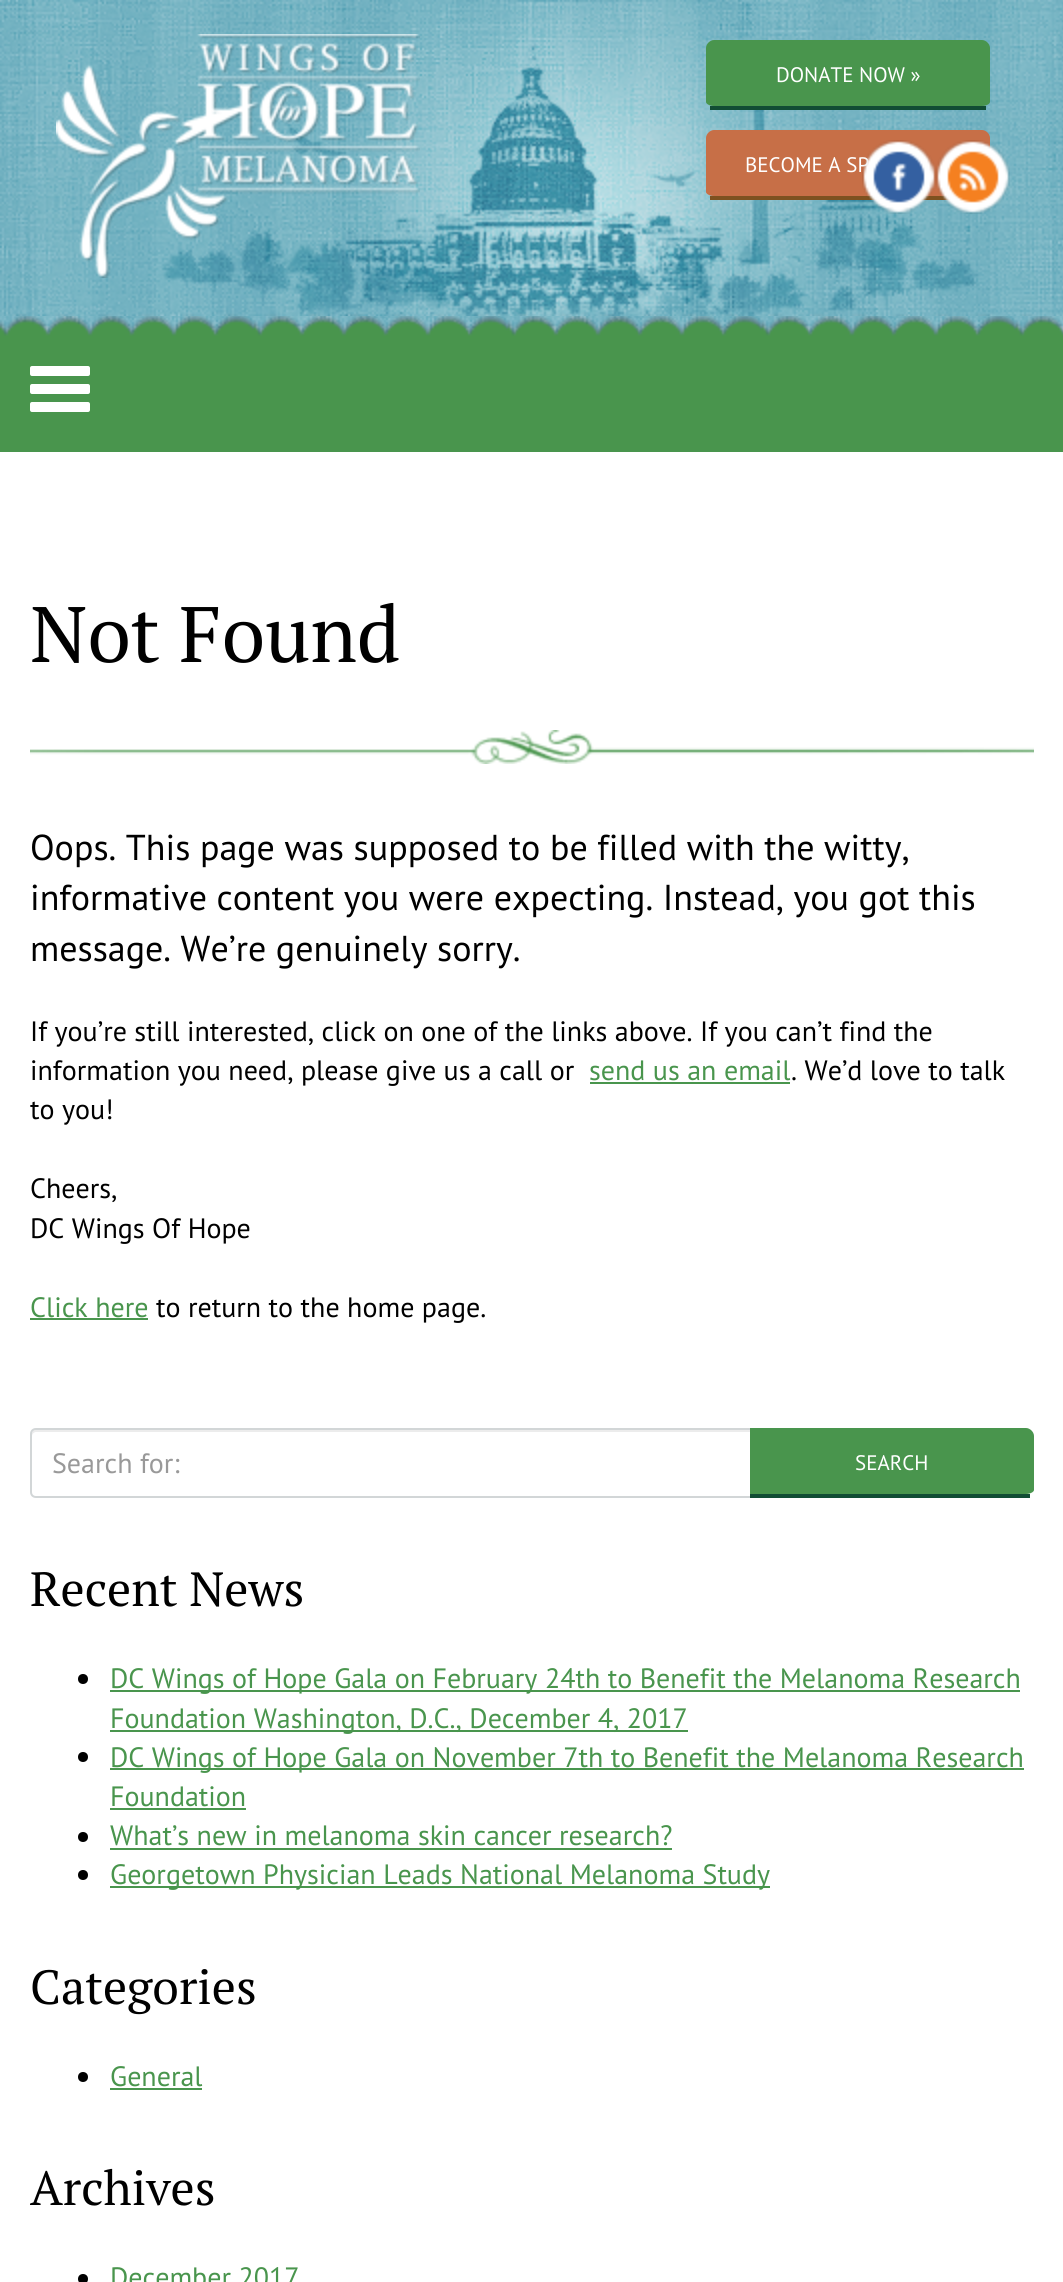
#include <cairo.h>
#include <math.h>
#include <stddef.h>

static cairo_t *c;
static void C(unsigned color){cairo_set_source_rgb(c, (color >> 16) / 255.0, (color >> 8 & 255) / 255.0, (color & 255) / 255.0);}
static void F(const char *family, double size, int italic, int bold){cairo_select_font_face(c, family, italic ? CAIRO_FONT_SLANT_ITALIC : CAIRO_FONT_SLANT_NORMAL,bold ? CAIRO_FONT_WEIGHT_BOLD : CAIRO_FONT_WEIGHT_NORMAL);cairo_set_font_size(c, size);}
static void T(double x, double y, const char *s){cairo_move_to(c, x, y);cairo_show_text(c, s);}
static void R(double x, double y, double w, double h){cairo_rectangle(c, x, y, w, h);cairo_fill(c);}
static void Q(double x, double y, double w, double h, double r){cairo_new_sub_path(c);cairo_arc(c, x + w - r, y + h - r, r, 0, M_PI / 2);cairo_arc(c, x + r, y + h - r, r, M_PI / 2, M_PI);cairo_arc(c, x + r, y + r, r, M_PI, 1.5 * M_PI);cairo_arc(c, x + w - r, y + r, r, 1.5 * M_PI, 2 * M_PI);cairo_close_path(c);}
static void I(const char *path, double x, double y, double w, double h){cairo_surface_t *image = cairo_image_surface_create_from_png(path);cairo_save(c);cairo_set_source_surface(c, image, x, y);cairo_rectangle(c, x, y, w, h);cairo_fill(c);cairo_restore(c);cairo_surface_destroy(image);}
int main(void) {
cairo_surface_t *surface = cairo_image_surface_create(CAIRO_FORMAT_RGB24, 1063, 2282);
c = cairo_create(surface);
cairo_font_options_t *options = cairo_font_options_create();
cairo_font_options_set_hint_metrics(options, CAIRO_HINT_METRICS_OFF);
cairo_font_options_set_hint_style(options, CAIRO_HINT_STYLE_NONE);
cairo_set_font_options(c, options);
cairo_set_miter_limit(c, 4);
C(0xffffff);
cairo_paint(c);
C(0x49954d);
R(0,336,1063,116);
I("1.png",0,316,1063,20);
I("2.png",0,0,1063,316);
I("3.png",56,34,364,244);
cairo_new_path(c);
cairo_move_to(c,714,40);
cairo_line_to(c,982,40);
cairo_curve_to(c,986,40,990,44,990,48);
cairo_line_to(c,990,102);
cairo_curve_to(c,990,104,986,106,982,106);
cairo_line_to(c,714,106);
cairo_curve_to(c,710,106,706,104,706,102);
cairo_line_to(c,706,48);
cairo_curve_to(c,706,44,710,40,714,40);
cairo_close_path(c);
cairo_fill(c);
C(0x114d34);
R(710,106,276,4);
F("PT Sans",21,0,0);
C(0xffffff);
T(776,82,"DONATE NOW »");
C(0xc76f47);
cairo_new_path(c);
cairo_move_to(c,714,130);
cairo_line_to(c,982,130);
cairo_curve_to(c,986,130,990,134,990,138);
cairo_line_to(c,990,192);
cairo_curve_to(c,990,194,986,196,982,196);
cairo_line_to(c,714,196);
cairo_curve_to(c,710,196,706,194,706,192);
cairo_line_to(c,706,138);
cairo_curve_to(c,706,134,710,130,714,130);
cairo_close_path(c);
cairo_fill(c);
C(0x7d5120);
R(710,196,241,4);
C(0xffffff);
T(745,172,"BECOME A SP");
I("4.png",862,140,74,74);
I("5.png",936,140,74,74);
Q(30,366,60,10,2);
cairo_fill(c);
Q(30,384,60,10,2);
cairo_fill(c);
Q(30,402,60,10,2);
cairo_fill(c);
I("6.png",30,730,1004,34);
F("PT Serif",78.5,0,0);
C(0x000000);
T(30,662,"Not Found");
F("PT Sans",36,0,0);
T(30,860,"Oops. This page was supposed to be filled with the witty,");
T(30,910,"informative content you were expecting. Instead, you got this");
T(30,961,"message. We’re genuinely sorry.");
F("PT Sans",28,0,0);
T(30,1041,"If you’re still interested, click on one of the links above. If you can’t find the");
T(30,1080,"information you need, please give us a call or");
C(0x49954d);
T(589,1080,"send us an email");
R(590,1082,200,2);
C(0x000000);
T(791,1080,". We’d love to talk");
T(30,1119,"to you!");
T(30,1198,"Cheers,");
T(30,1238,"DC Wings Of Hope");
C(0x49954d);
T(30,1317,"Click here");
R(30,1318,118,2);
C(0x000000);
T(156,1317,"to return to the home page.");
C(0xececec);
cairo_new_path(c);
cairo_move_to(c,36,1432);
cairo_line_to(c,750,1432);
cairo_line_to(c,750,1430);
cairo_line_to(c,36,1430);
cairo_curve_to(c,32,1430,32,1433,32,1436);
cairo_curve_to(c,32,1434,34,1432,36,1432);
cairo_close_path(c);
cairo_fill(c);
cairo_new_path(c);
cairo_move_to(c,36,1429);
cairo_line_to(c,751,1429);
cairo_line_to(c,751,1497);
cairo_line_to(c,36,1497);
cairo_curve_to(c,33,1497,31,1495,31,1492);
cairo_line_to(c,31,1434);
cairo_curve_to(c,31,1431,33,1429,36,1429);
cairo_close_path(c);
C(0xd2d6d7);
cairo_stroke(c);
C(0x999999);
T(52,1473,"Search for:");
C(0x49954d);
cairo_new_path(c);
cairo_move_to(c,750,1428);
cairo_line_to(c,1026,1428);
cairo_curve_to(c,1030,1428,1034,1432,1034,1436);
cairo_line_to(c,1034,1490);
cairo_curve_to(c,1034,1492,1030,1494,1026,1494);
cairo_line_to(c,750,1494);
cairo_close_path(c);
cairo_fill(c);
C(0x114d34);
R(750,1494,280,4);
F("PT Sans",21,0,0);
C(0xffffff);
T(855,1470,"SEARCH");
F("PT Serif",48,0,0);
C(0x000000);
T(30,1606,"Recent News");
cairo_new_path(c);
cairo_arc(c,83,1679,5,0,2 * M_PI);
cairo_fill(c);
C(0x49954d);
R(110,1690,910,2);
F("PT Sans",28,0,0);
T(110,1688,"DC Wings of Hope Gala on February 24th to Benefit the Melanoma Research");
R(110,1730,578,2);
T(110,1728,"Foundation Washington, D.C., December 4, 2017");
C(0x000000);
cairo_new_path(c);
cairo_arc(c,83,1757,5,0,2 * M_PI);
cairo_fill(c);
C(0x49954d);
R(110,1768,914,2);
T(110,1767,"DC Wings of Hope Gala on November 7th to Benefit the Melanoma Research");
T(110,1806,"Foundation");
R(110,1808,136,2);
C(0x000000);
cairo_new_path(c);
cairo_arc(c,83,1837,5,0,2 * M_PI);
cairo_fill(c);
C(0x49954d);
T(110,1845,"What’s new in melanoma skin cancer research?");
R(110,1848,562,2);
C(0x000000);
cairo_new_path(c);
cairo_arc(c,83,1875,5,0,2 * M_PI);
cairo_fill(c);
C(0x49954d);
R(110,1886,660,2);
T(110,1884,"Georgetown Physician Leads National Melanoma Study");
F("PT Serif",48,0,0);
C(0x000000);
T(30,2004,"Categories");
cairo_new_path(c);
cairo_arc(c,83,2077,5,0,2 * M_PI);
cairo_fill(c);
F("PT Sans",28,0,0);
C(0x49954d);
T(110,2086,"General");
R(110,2088,92,2);
F("PT Serif",48,0,0);
C(0x000000);
T(30,2205,"Archives");
cairo_new_path(c);
cairo_arc(c,83,2279,5,0,2 * M_PI);
cairo_fill(c);
F("PT Sans",28,0,0);
C(0x49954d);
T(110,2287,"December 2017");
cairo_surface_write_to_png(surface, "o.png");
cairo_font_options_destroy(options);
cairo_destroy(c);
cairo_surface_destroy(surface);
return 0;
}
